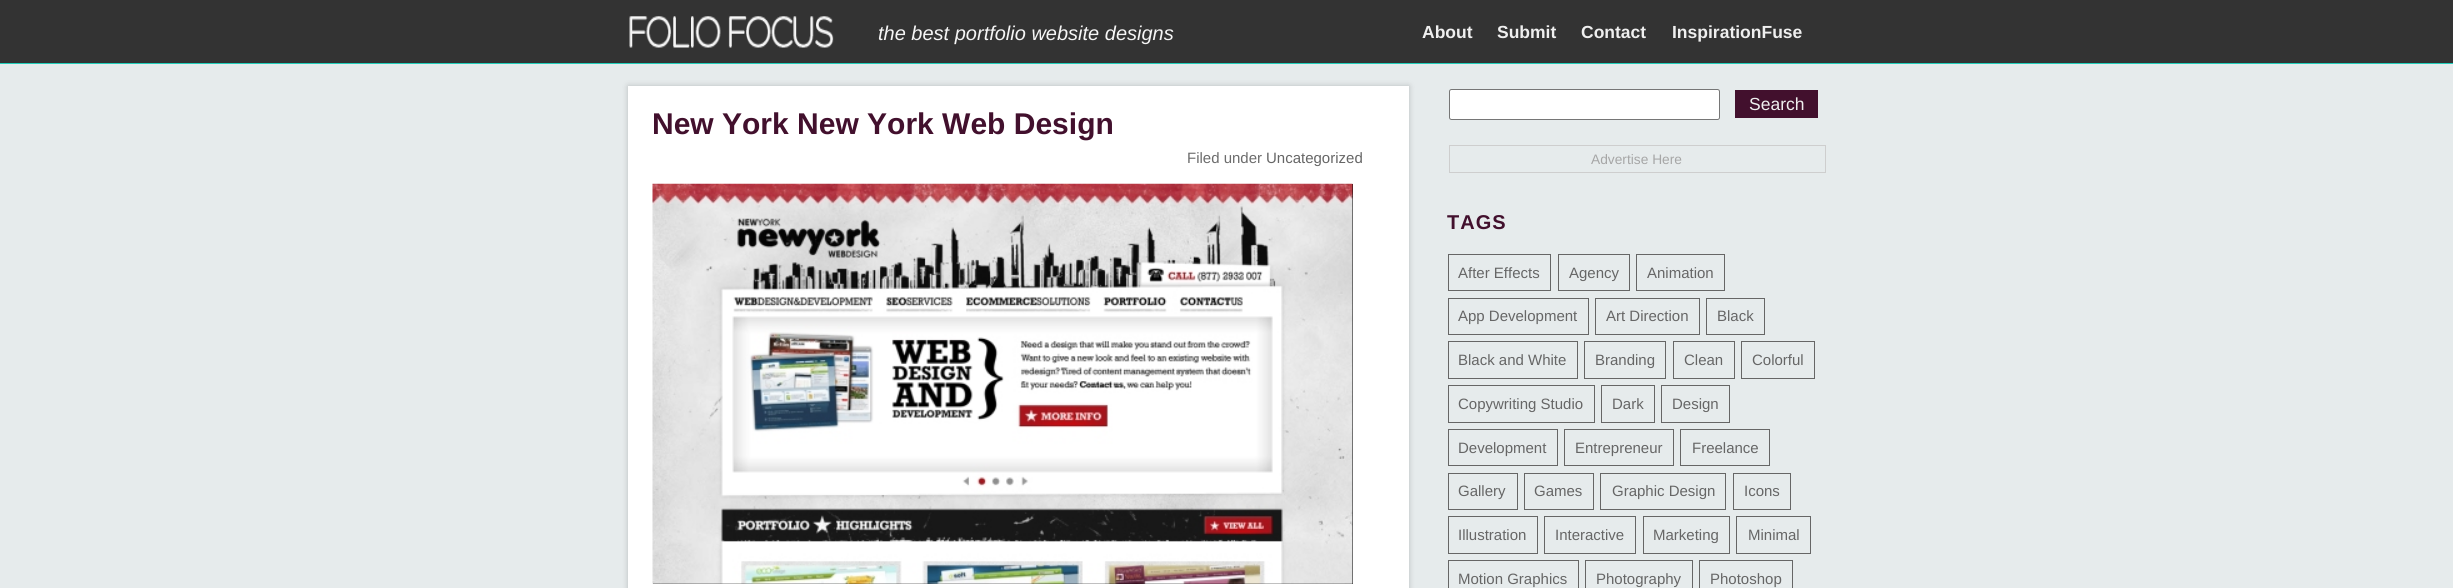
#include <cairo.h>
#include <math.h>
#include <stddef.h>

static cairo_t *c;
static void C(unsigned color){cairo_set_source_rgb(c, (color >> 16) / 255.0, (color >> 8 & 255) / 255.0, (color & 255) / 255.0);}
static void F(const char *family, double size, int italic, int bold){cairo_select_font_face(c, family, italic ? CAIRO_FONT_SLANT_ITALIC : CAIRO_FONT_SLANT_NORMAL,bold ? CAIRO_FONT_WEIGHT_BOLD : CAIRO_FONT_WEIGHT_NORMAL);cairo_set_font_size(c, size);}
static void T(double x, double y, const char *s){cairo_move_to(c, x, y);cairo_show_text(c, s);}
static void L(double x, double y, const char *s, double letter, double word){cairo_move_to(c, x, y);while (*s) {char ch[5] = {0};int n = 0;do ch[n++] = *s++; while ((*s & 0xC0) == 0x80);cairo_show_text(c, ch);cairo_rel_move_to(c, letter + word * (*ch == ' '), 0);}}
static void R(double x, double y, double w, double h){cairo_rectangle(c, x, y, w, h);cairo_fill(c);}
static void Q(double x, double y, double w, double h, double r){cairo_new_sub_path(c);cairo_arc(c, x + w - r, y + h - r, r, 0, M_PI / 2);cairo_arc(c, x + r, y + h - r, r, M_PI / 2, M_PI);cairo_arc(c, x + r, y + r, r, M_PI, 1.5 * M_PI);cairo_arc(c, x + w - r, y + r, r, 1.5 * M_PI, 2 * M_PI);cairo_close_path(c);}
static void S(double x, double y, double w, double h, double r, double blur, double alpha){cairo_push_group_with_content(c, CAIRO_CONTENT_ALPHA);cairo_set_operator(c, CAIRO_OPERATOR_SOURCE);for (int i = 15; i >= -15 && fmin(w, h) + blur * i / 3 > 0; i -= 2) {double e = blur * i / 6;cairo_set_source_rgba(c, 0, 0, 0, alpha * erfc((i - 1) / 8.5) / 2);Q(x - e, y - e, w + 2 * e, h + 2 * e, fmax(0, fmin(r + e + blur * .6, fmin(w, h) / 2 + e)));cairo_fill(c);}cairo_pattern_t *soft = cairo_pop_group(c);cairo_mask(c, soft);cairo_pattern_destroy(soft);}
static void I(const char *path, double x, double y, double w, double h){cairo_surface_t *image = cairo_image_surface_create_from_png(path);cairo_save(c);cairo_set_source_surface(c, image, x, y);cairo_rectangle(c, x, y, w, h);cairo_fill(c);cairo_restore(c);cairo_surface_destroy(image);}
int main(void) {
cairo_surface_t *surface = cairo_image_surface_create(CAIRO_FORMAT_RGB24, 2453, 588);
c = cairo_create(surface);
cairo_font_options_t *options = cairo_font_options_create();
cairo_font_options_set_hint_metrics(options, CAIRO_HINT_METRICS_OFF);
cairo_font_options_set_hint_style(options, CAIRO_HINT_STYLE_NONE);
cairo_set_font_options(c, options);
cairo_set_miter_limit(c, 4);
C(0xe6ebec);
cairo_paint(c);
C(0x333333);
R(0,0,2453,63);
C(0x22cfbb);
R(0,63,2453,1);
I("1.png",629,16,205,32);
F("Liberation Sans",20,1,0);
C(0xf5f5f5);
T(878,40,"the best portfolio website designs");
F("Liberation Sans",17.5,0,1);
C(0xefefef);
T(1422,38,"About");
T(1497,38,"Submit");
T(1581,38,"Contact");
T(1672,38,"InspirationFuse");
C(0x000000);
S(628,86,781,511,0,3,.2);
C(0xffffff);
R(628,86,781,502);
F("Liberation Sans",30,0,1);
C(0x42102d);
T(652,134,"New York New York Web Design");
F("Liberation Sans",15,0,0);
C(0x6c6c6c);
T(1187,163,"Filed under");
C(0x666666);
T(1266,163,"Uncategorized");
C(0x000000);
R(653,184,700,400);
I("2.png",652,183,701,401);
C(0xffffff);
Q(1449.5,89.5,270,30,2);
cairo_fill_preserve(c);
C(0x767676);
cairo_set_line_width(c,1);
cairo_stroke(c);
C(0x42102d);
R(1735,90,83,28);
F("Liberation Sans",17.5,0,0);
C(0xefefef);
T(1749,110,"Search");
cairo_rectangle(c,1449.5,145.5,376,27);
C(0xcecece);
cairo_stroke(c);
F("Liberation Sans",13.75,0,0);
C(0xa6a6a6);
T(1591,164,"Advertise Here");
F("Liberation Sans",20,0,1);
C(0x42102d);
L(1447,229,"TAGS",1,0);
cairo_rectangle(c,1448.5,254.5,102,36);
C(0x666666);
cairo_stroke(c);
F("Liberation Sans",15,0,0);
T(1458,278,"After Effects");
cairo_rectangle(c,1558.5,254.5,71,36);
cairo_stroke(c);
T(1569,278,"Agency");
cairo_rectangle(c,1636.5,254.5,88,36);
cairo_stroke(c);
T(1647,278,"Animation");
cairo_rectangle(c,1448.5,298.5,140,36);
cairo_stroke(c);
T(1458,321,"App Development");
cairo_rectangle(c,1595.5,298.5,104,36);
cairo_stroke(c);
T(1606,321,"Art Direction");
cairo_rectangle(c,1706.5,298.5,58,36);
cairo_stroke(c);
T(1717,321,"Black");
cairo_rectangle(c,1448.5,341.5,129,37);
cairo_stroke(c);
T(1458,365,"Black and White");
cairo_rectangle(c,1584.5,341.5,81,37);
cairo_stroke(c);
T(1595,365,"Branding");
cairo_rectangle(c,1673.5,341.5,61,37);
cairo_stroke(c);
T(1684,365,"Clean");
cairo_rectangle(c,1741.5,341.5,73,37);
cairo_stroke(c);
T(1752,365,"Colorful");
cairo_rectangle(c,1448.5,385.5,146,37);
cairo_stroke(c);
T(1458,409,"Copywriting Studio");
cairo_rectangle(c,1601.5,385.5,53,37);
cairo_stroke(c);
T(1612,409,"Dark");
cairo_rectangle(c,1661.5,385.5,68,37);
cairo_stroke(c);
T(1672,409,"Design");
cairo_rectangle(c,1448.5,429.5,109,36);
cairo_stroke(c);
T(1458,453,"Development");
cairo_rectangle(c,1564.5,429.5,109,36);
cairo_stroke(c);
T(1575,453,"Entrepreneur");
cairo_rectangle(c,1680.5,429.5,89,36);
cairo_stroke(c);
T(1692,453,"Freelance");
cairo_rectangle(c,1448.5,473.5,69,36);
cairo_stroke(c);
T(1458,496,"Gallery");
cairo_rectangle(c,1524.5,473.5,69,36);
cairo_stroke(c);
T(1534,496,"Games");
cairo_rectangle(c,1600.5,473.5,125,36);
cairo_stroke(c);
T(1612,496,"Graphic Design");
cairo_rectangle(c,1733.5,473.5,57,36);
cairo_stroke(c);
T(1744,496,"Icons");
cairo_rectangle(c,1448.5,516.5,89,37);
cairo_stroke(c);
T(1458,540,"Illustration");
cairo_rectangle(c,1544.5,516.5,91,37);
cairo_stroke(c);
T(1555,540,"Interactive");
cairo_rectangle(c,1643.5,516.5,86,37);
cairo_stroke(c);
T(1653,540,"Marketing");
cairo_rectangle(c,1736.5,516.5,74,37);
cairo_stroke(c);
T(1748,540,"Minimal");
cairo_rectangle(c,1448.5,560.5,130,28);
cairo_stroke(c);
T(1458,584,"Motion Graphics");
cairo_rectangle(c,1585.5,560.5,107,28);
cairo_stroke(c);
T(1596,584,"Photography");
cairo_rectangle(c,1699.5,560.5,93,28);
cairo_stroke(c);
T(1710,584,"Photoshop");
cairo_surface_write_to_png(surface, "o.png");
cairo_font_options_destroy(options);
cairo_destroy(c);
cairo_surface_destroy(surface);
return 0;
}
